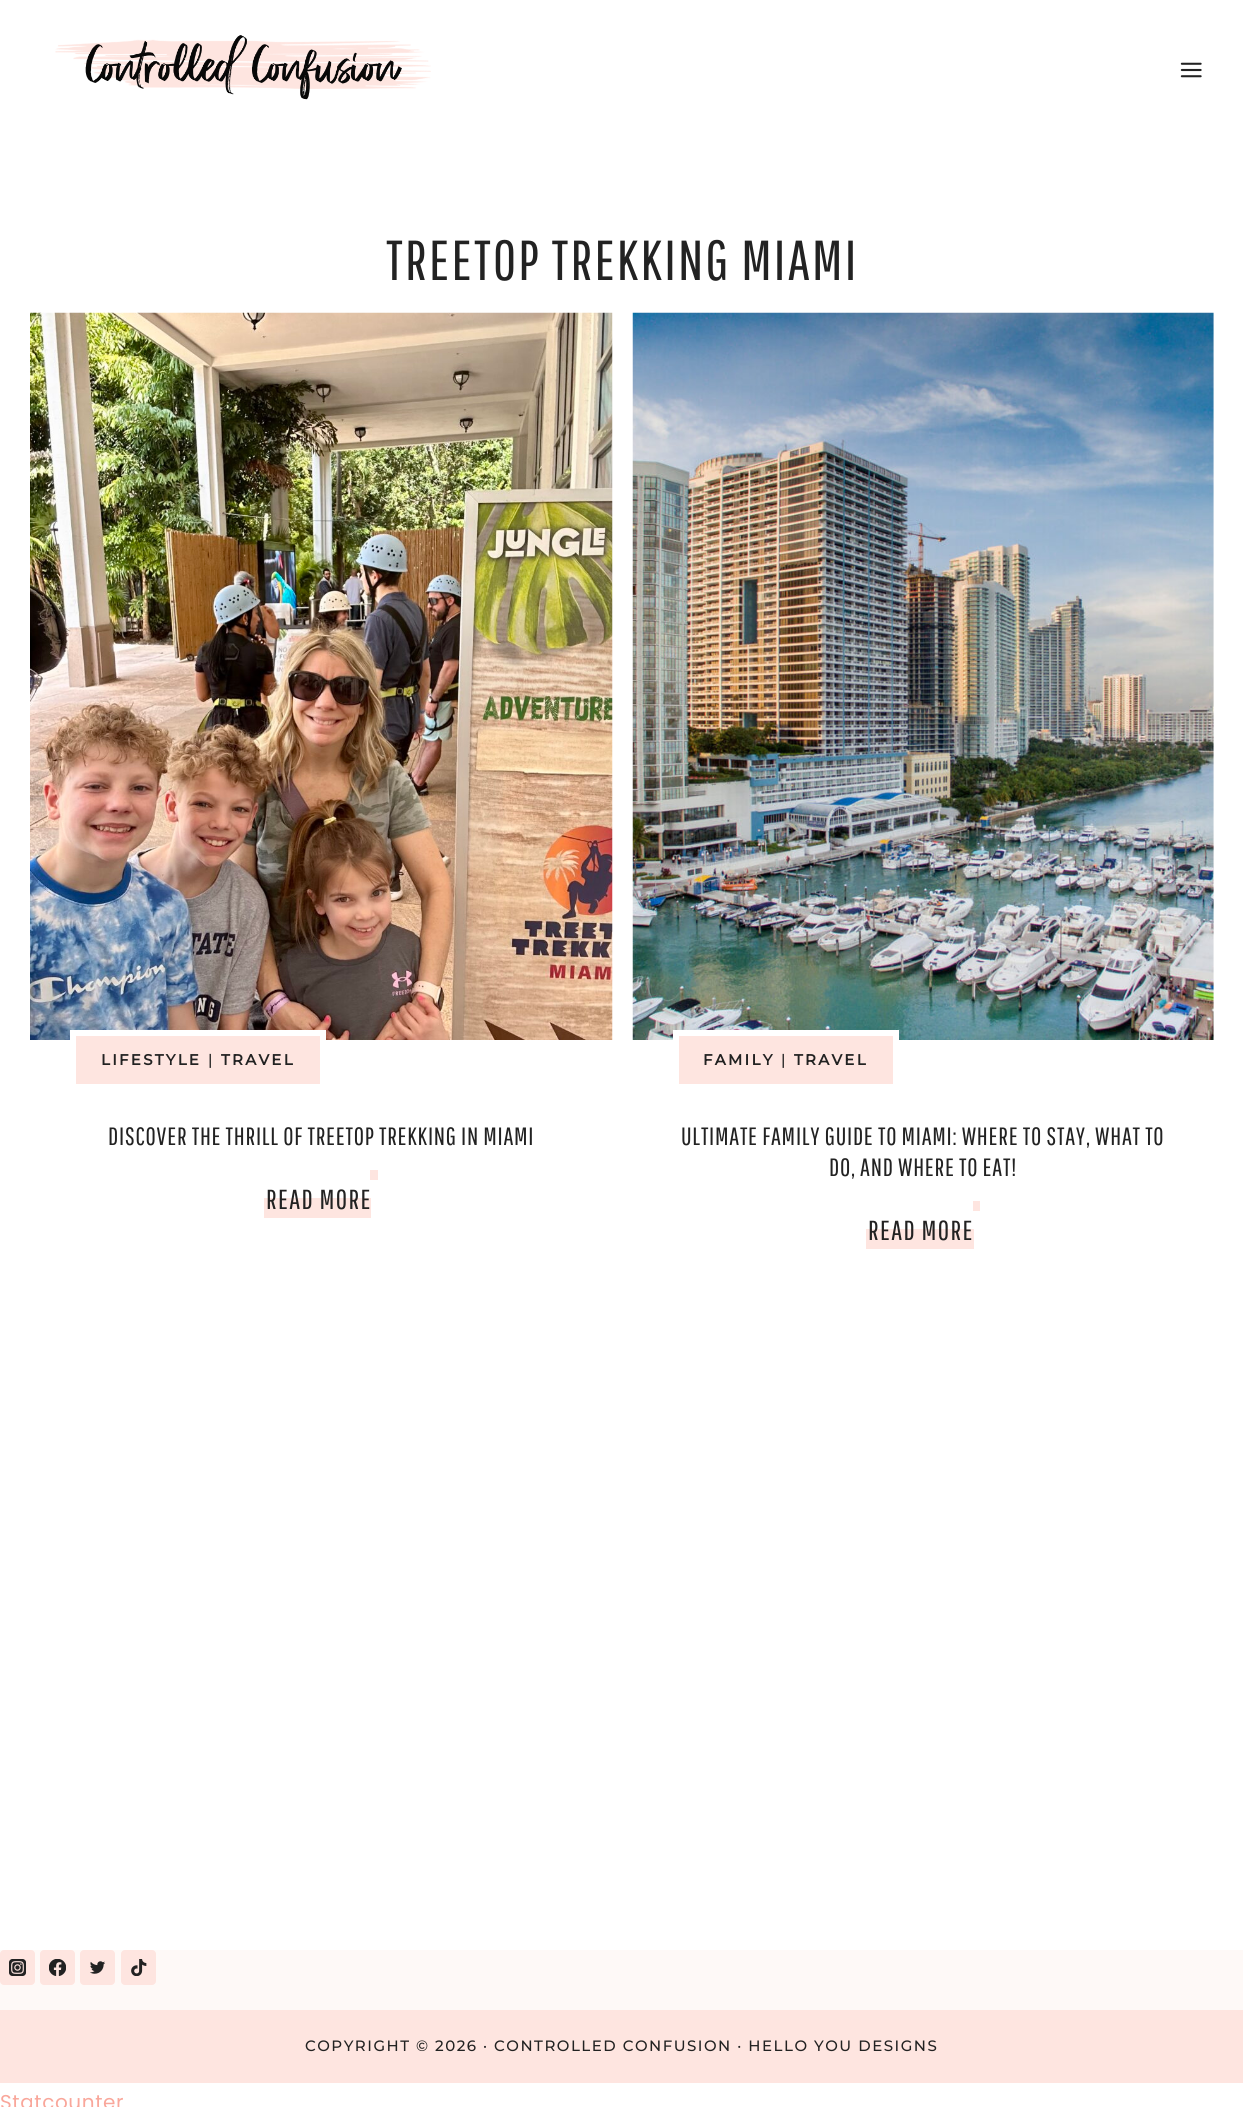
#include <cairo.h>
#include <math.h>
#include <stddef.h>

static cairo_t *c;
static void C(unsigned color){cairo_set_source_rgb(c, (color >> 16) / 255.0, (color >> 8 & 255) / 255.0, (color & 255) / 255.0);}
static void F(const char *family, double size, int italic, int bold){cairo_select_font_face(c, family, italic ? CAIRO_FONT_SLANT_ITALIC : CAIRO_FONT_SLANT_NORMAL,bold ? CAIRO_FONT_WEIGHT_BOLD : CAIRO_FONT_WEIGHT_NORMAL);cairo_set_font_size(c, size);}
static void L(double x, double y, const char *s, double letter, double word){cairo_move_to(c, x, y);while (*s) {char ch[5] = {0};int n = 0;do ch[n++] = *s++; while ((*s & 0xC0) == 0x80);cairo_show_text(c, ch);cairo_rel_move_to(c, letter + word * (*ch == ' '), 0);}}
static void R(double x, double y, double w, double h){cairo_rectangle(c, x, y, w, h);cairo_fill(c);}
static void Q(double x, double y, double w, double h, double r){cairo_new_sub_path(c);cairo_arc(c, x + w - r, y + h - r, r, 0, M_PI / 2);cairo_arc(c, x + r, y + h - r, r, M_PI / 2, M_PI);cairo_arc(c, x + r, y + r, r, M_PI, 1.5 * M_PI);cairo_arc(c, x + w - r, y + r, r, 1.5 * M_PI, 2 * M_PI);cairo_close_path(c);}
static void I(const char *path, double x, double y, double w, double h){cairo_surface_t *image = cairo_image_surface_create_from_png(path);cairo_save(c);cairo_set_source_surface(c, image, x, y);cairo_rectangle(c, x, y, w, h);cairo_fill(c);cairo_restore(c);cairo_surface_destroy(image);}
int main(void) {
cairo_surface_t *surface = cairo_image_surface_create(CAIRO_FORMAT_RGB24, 1243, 2107);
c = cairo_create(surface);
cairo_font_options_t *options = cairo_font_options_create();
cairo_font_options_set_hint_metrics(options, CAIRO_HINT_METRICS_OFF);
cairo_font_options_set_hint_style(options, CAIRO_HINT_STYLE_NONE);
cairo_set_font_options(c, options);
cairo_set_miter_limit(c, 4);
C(0xffffff);
cairo_paint(c);
I("1.png",55,35,376,65);
I("2.png",1180,62,22,16);
F("Pathway Gothic One",56.25,0,0);
C(0x222222);
L(386,280,"TREETOP TREKKING MIAMI",2.25,0);
I("3.png",30,312,583,728);
C(0xfee5e0);
cairo_rectangle(c,73,1033,250,54);
cairo_fill_preserve(c);
C(0xffffff);
cairo_set_line_width(c,6);
cairo_stroke(c);
F("Montserrat",15,0,1);
C(0x222222);
L(101,1065,"LIFESTYLE",2.25,0);
F("Montserrat Thin",15,0,0);
L(208,1065,"|",2.25,0);
F("Montserrat",15,0,1);
L(221,1065,"TRAVEL",2.25,0);
F("Pathway Gothic One",25,0,0);
L(108,1145,"DISCOVER THE THRILL OF TREETOP TREKKING IN MIAMI",.75,0);
C(0xfee5e0);
R(264,1198,107,20);
F("Pathway Gothic One",27.5,0,0);
C(0x222222);
L(266,1209,"READ MORE",1.4,0);
C(0xfee5e0);
R(370,1170,8,10);
I("4.png",632,312,582,728);
cairo_rectangle(c,676,1033,220,54);
cairo_fill_preserve(c);
C(0xffffff);
cairo_stroke(c);
F("Montserrat",15,0,1);
C(0x222222);
L(703,1065,"FAMILY",2.25,0);
F("Montserrat Thin",15,0,0);
L(781,1065,"|",2.25,0);
F("Montserrat",15,0,1);
L(794,1065,"TRAVEL",2.25,0);
F("Pathway Gothic One",25,0,0);
L(681,1145,"ULTIMATE FAMILY GUIDE TO MIAMI: WHERE TO STAY, WHAT TO",.75,0);
L(829,1176,"DO, AND WHERE TO EAT!",.75,0);
C(0xfee5e0);
R(866,1229,108,20);
F("Pathway Gothic One",27.5,0,0);
C(0x222222);
L(868,1240,"READ MORE",1.4,0);
C(0xfee5e0);
R(973,1201,7,10);
C(0xfef9f7);
R(0,1950,1243,60);
C(0xfee5e0);
Q(0,1950,35,35,4);
cairo_fill(c);
I("5.png",9,1959,17,17);
Q(40,1950,35,35,4);
cairo_fill(c);
I("6.png",49,1959,17,17);
Q(80,1950,35,35,4);
cairo_fill(c);
I("7.png",90,1961,15,13);
Q(121,1950,35,35,4);
cairo_fill(c);
I("8.png",131,1959,16,17);
R(0,2010,1243,73);
F("Montserrat Thin",15,0,0);
C(0x222222);
L(305,2051,"COPYRIGHT © 2026 · CONTROLLED CONFUSION · HELLO YOU DESIGNS",1.5,0);
F("Poppins",20,0,0);
C(0xf9a79b);
L(0,2109,"Statcounter",.6,0);
cairo_surface_write_to_png(surface, "o.png");
cairo_font_options_destroy(options);
cairo_destroy(c);
cairo_surface_destroy(surface);
return 0;
}
